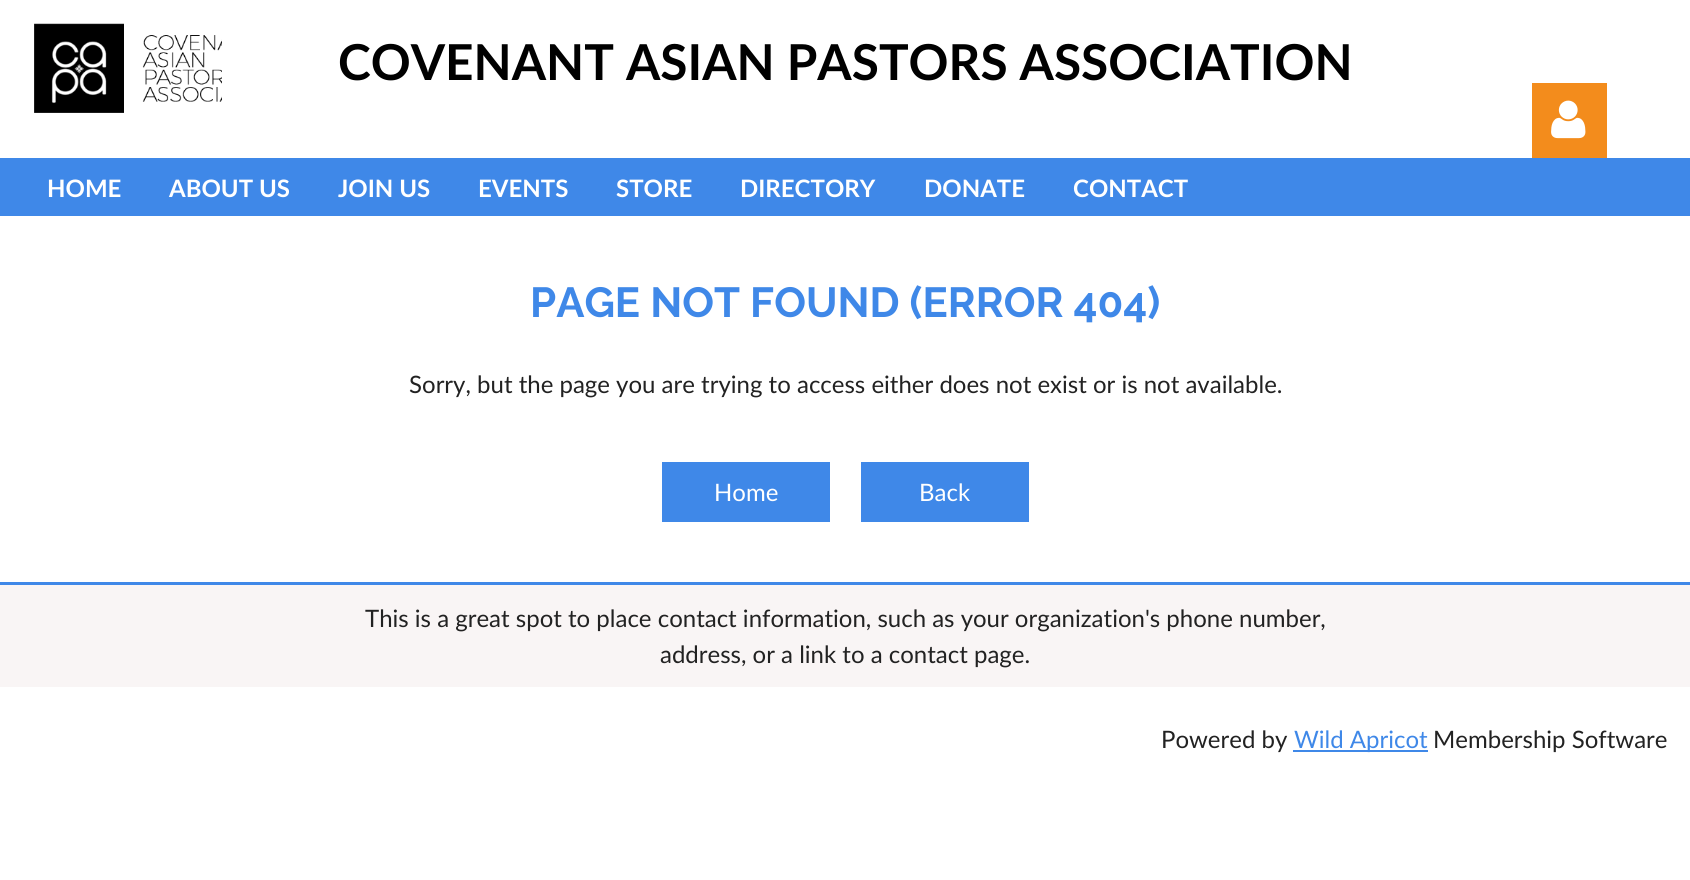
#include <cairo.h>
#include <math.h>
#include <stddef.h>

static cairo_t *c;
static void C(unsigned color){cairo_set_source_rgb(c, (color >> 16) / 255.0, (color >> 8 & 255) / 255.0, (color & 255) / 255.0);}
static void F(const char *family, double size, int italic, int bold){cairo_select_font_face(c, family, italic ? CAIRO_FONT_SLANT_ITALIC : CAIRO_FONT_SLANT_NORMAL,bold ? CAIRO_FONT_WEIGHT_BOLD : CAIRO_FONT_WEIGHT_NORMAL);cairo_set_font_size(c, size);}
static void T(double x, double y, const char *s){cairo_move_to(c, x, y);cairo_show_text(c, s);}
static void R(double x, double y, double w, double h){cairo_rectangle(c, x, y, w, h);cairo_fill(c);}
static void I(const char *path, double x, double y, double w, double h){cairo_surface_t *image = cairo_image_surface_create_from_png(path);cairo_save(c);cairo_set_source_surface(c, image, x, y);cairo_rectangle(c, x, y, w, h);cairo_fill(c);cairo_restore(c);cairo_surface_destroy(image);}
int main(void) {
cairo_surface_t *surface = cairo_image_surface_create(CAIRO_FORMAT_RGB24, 1690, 880);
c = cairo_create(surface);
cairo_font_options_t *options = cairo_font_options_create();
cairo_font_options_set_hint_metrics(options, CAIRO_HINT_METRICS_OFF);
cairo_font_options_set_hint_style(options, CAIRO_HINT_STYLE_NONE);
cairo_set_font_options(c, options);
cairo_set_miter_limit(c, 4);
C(0xffffff);
cairo_paint(c);
I("1.png",34,23,188,90);
F("Lato",49.5,0,1);
C(0x000000);
T(338,80,"COVENANT ASIAN PASTORS ASSOCIATION");
C(0xf38c1c);
R(1532,83,75,75);
I("2.png",1551,100,35,39);
C(0x3f88e8);
R(0,158,1690,58);
F("Lato",24,0,1);
C(0xffffff);
T(47,197,"HOME");
T(169,197,"ABOUT US");
T(338,197,"JOIN US");
T(478,197,"EVENTS");
T(616,197,"STORE");
T(740,197,"DIRECTORY");
T(924,197,"DONATE");
T(1073,197,"CONTACT");
F("Raleway",42,0,1);
C(0x3f88e8);
T(530,317,"PAGE NOT FOUND (ERROR 404)");
F("Lato",24,0,0);
C(0x222222);
T(409,393,"Sorry, but the page you are trying to access either does not exist or is not available.");
C(0x3f88e8);
R(662,462,168,60);
C(0xffffff);
T(714,501,"Home");
C(0x3f88e8);
R(861,462,168,60);
C(0xffffff);
T(919,501,"Back");
C(0x3f88e8);
R(0,582,1690,3);
C(0xf9f5f5);
R(0,585,1690,102);
C(0x222222);
T(365,627,"This is a great spot to place contact information, such as your organization's phone number,");
T(660,663,"address, or a link to a contact page.");
T(1161,748,"Powered by");
C(0x3f88e8);
R(1293,750,135,2);
T(1294,748,"Wild Apricot");
C(0x222222);
T(1433,748,"Membership Software");
cairo_surface_write_to_png(surface, "o.png");
cairo_font_options_destroy(options);
cairo_destroy(c);
cairo_surface_destroy(surface);
return 0;
}
